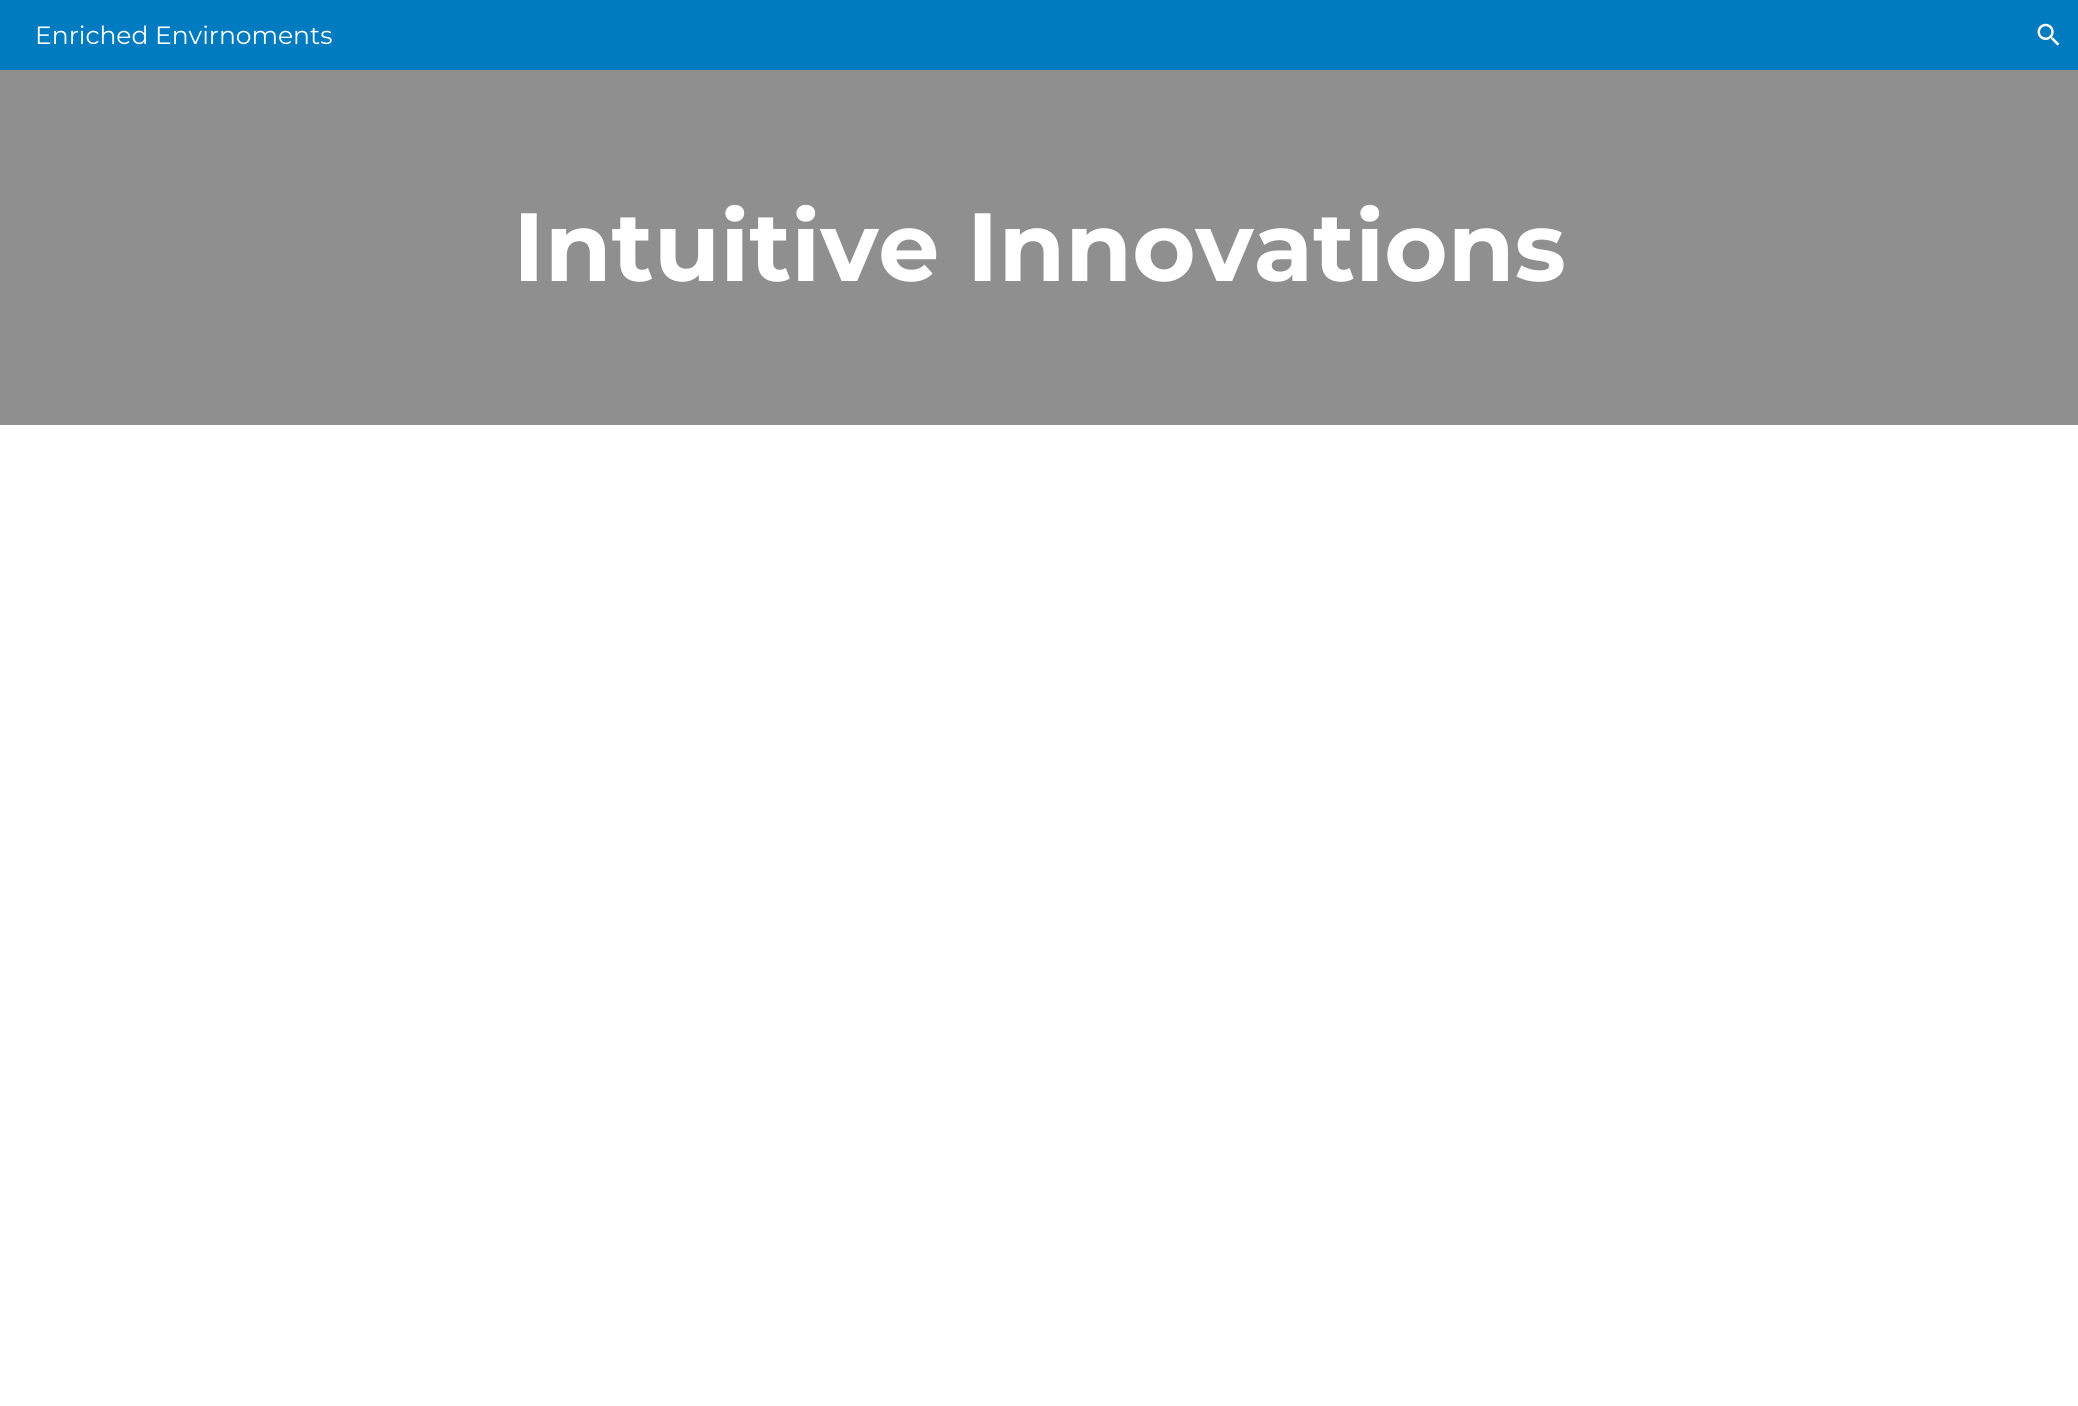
#include <cairo.h>
#include <math.h>
#include <stddef.h>

static cairo_t *c;
static void C(unsigned color){cairo_set_source_rgb(c, (color >> 16) / 255.0, (color >> 8 & 255) / 255.0, (color & 255) / 255.0);}
static void F(const char *family, double size, int italic, int bold){cairo_select_font_face(c, family, italic ? CAIRO_FONT_SLANT_ITALIC : CAIRO_FONT_SLANT_NORMAL,bold ? CAIRO_FONT_WEIGHT_BOLD : CAIRO_FONT_WEIGHT_NORMAL);cairo_set_font_size(c, size);}
static void T(double x, double y, const char *s){cairo_move_to(c, x, y);cairo_show_text(c, s);}
static void R(double x, double y, double w, double h){cairo_rectangle(c, x, y, w, h);cairo_fill(c);}
static void I(const char *path, double x, double y, double w, double h){cairo_surface_t *image = cairo_image_surface_create_from_png(path);cairo_save(c);cairo_set_source_surface(c, image, x, y);cairo_rectangle(c, x, y, w, h);cairo_fill(c);cairo_restore(c);cairo_surface_destroy(image);}
int main(void) {
cairo_surface_t *surface = cairo_image_surface_create(CAIRO_FORMAT_RGB24, 2078, 1406);
c = cairo_create(surface);
cairo_font_options_t *options = cairo_font_options_create();
cairo_font_options_set_hint_metrics(options, CAIRO_HINT_METRICS_OFF);
cairo_font_options_set_hint_style(options, CAIRO_HINT_STYLE_NONE);
cairo_set_font_options(c, options);
cairo_set_miter_limit(c, 4);
C(0xffffff);
cairo_paint(c);
C(0x007bbf);
R(0,0,2078,70);
F("Montserrat",25,0,0);
C(0xffffff);
T(35,44,"Enriched Envirnoments");
I("1.png",2037,23,23,23);
C(0x8f8f8f);
R(0,70,2078,355);
F("Montserrat",96.75,0,1);
C(0xffffff);
T(513,281,"Intuitive Innovations");
cairo_surface_write_to_png(surface, "o.png");
cairo_font_options_destroy(options);
cairo_destroy(c);
cairo_surface_destroy(surface);
return 0;
}
